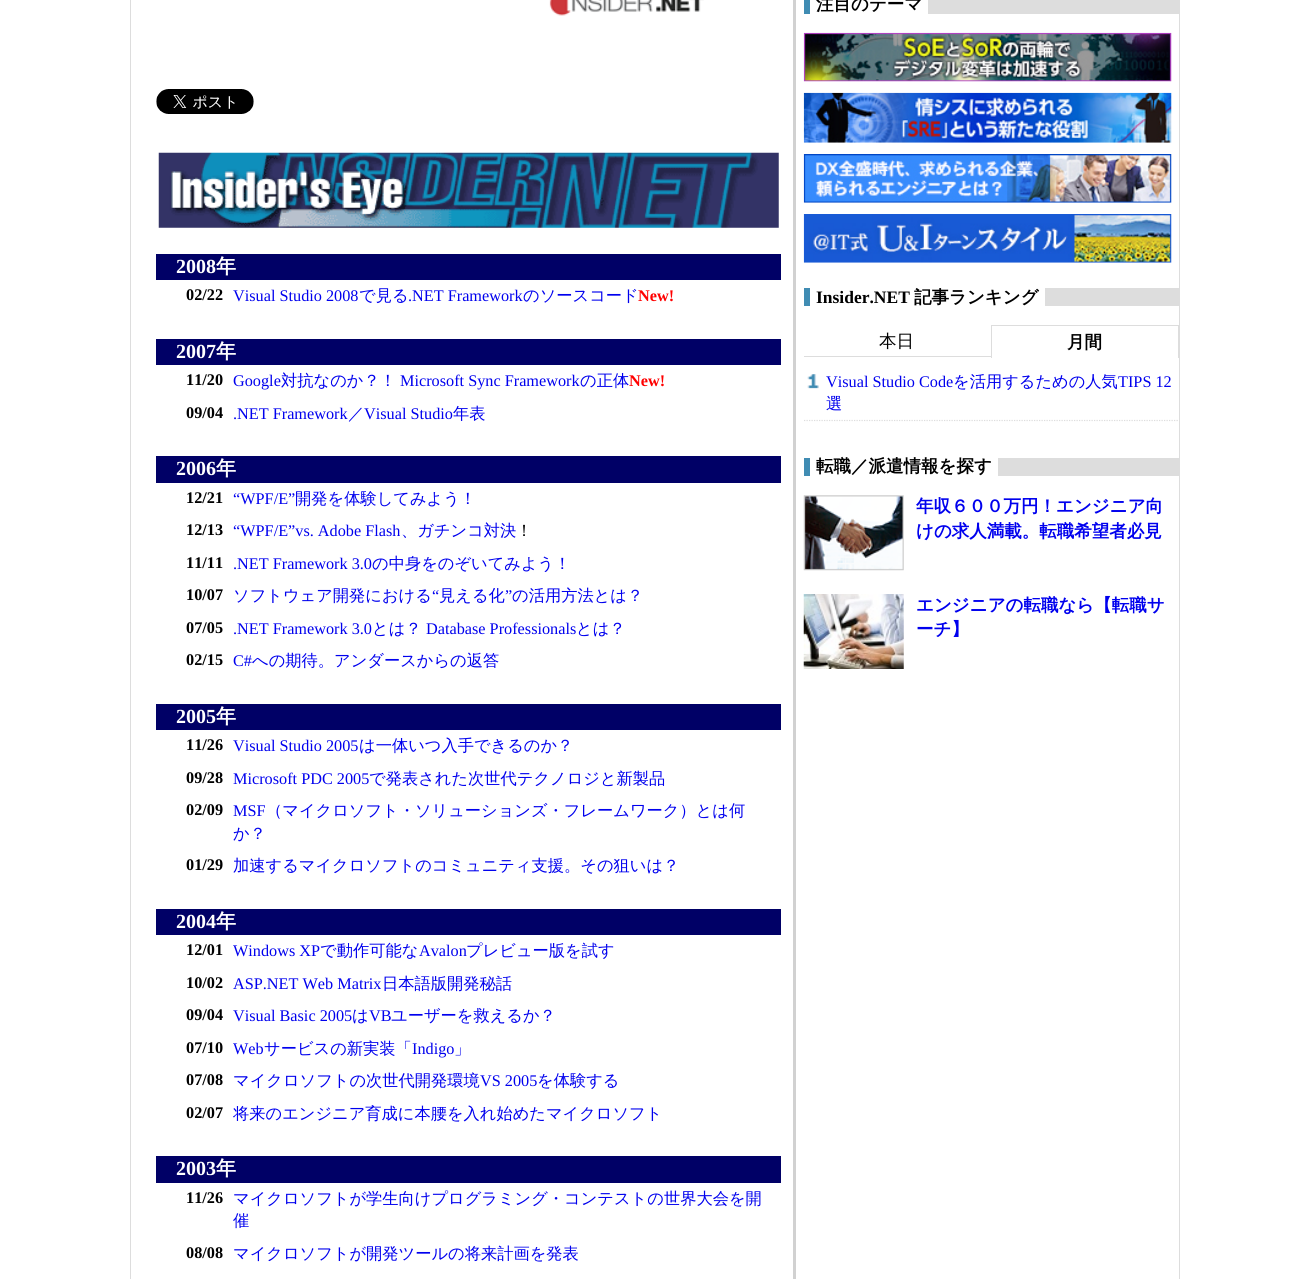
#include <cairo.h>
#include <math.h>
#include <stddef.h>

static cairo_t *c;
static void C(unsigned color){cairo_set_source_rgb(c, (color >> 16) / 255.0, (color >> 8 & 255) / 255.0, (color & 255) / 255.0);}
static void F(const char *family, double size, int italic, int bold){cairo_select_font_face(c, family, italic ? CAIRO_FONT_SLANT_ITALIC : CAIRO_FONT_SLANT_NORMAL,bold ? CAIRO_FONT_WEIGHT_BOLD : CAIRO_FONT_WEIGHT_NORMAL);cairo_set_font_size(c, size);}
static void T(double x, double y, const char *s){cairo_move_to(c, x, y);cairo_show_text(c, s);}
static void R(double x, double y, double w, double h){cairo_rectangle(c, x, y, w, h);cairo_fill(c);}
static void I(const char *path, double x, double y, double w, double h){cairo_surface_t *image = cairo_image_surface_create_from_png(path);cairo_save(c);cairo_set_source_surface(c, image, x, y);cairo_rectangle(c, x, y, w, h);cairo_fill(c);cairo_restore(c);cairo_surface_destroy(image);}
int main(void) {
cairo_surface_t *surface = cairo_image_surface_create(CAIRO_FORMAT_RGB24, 1308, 1279);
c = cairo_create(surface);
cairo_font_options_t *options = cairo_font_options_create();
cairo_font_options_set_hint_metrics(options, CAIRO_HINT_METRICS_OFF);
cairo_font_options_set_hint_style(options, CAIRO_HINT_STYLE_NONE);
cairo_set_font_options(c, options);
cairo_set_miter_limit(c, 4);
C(0xffffff);
cairo_paint(c);
C(0xd1d1d1);
R(793,0,3,1279);
C(0xdddddd);
R(1179,0,1,1279);
R(130,0,1,1279);
I("1.png",156,89,98,25);
I("2.png",158,152,621,76);
C(0x000066);
R(156,254,625,26);
F("Liberation Serif",20,0,1);
C(0xffffff);
T(176,273,"2008");
F("WenQuanYi Zen Hei",20,0,1);
T(216,273,"年");
F("Liberation Serif",16.25,0,1);
C(0x000000);
T(186,300,"02/22");
F("Liberation Serif",16.25,0,0);
C(0x0000ee);
T(233,301,"Visual Studio 2008");
F("WenQuanYi Zen Hei Medium",16.25,0,0);
T(359,301,"で見る");
F("Liberation Serif",16.25,0,0);
T(408,301,".NET Framework");
F("WenQuanYi Zen Hei Medium",16.25,0,0);
T(523,301,"のソースコード");
F("Liberation Serif",16.25,0,1);
C(0xff0000);
T(638,301,"New!");
C(0x000066);
R(156,339,625,26);
F("Liberation Serif",20,0,1);
C(0xffffff);
T(176,358,"2007");
F("WenQuanYi Zen Hei",20,0,1);
T(216,358,"年");
F("Liberation Serif",16.25,0,1);
C(0x000000);
T(186,385,"11/20");
F("Liberation Serif",16.25,0,0);
C(0x0000ee);
T(233,386,"Google");
F("WenQuanYi Zen Hei Medium",16.25,0,0);
T(281,386,"対抗なのか？！");
F("Liberation Serif",16.25,0,0);
T(400,386,"Microsoft Sync Framework");
F("WenQuanYi Zen Hei Medium",16.25,0,0);
T(580,386,"の正体");
F("Liberation Serif",16.25,0,1);
C(0xff0000);
T(629,386,"New!");
C(0x000000);
T(186,418,"09/04");
F("Liberation Serif",16.25,0,0);
C(0x0000ee);
T(233,419,".NET Framework");
F("WenQuanYi Zen Hei Medium",16.25,0,0);
T(348,419,"／");
F("Liberation Serif",16.25,0,0);
T(364,419,"Visual Studio");
F("WenQuanYi Zen Hei Medium",16.25,0,0);
T(453,419,"年表");
C(0x000066);
R(156,456,625,27);
F("Liberation Serif",20,0,1);
C(0xffffff);
T(176,475,"2006");
F("WenQuanYi Zen Hei",20,0,1);
T(216,475,"年");
F("Liberation Serif",16.25,0,1);
C(0x000000);
T(186,503,"12/21");
F("Liberation Serif",16.25,0,0);
C(0x0000ee);
T(233,504,"“WPF/E”");
F("WenQuanYi Zen Hei Medium",16.25,0,0);
T(295,504,"開発を体験してみよう！");
F("Liberation Serif",16.25,0,1);
C(0x000000);
T(186,535,"12/13");
F("Liberation Serif",16.25,0,0);
C(0x0000ee);
T(233,536,"“WPF/E”vs. Adobe Flash");
F("WenQuanYi Zen Hei Medium",16.25,0,0);
T(401,536,"、ガチンコ対決");
C(0x000000);
T(516,536,"！");
F("Liberation Serif",16.25,0,1);
T(186,568,"11/11");
F("Liberation Serif",16.25,0,0);
C(0x0000ee);
T(233,569,".NET Framework 3.0");
F("WenQuanYi Zen Hei Medium",16.25,0,0);
T(372,569,"の中身をのぞいてみよう！");
F("Liberation Serif",16.25,0,1);
C(0x000000);
T(186,600,"10/07");
F("WenQuanYi Zen Hei Medium",16.25,0,0);
C(0x0000ee);
T(233,601,"ソフトウェア開発における");
F("Liberation Serif",16.25,0,0);
T(432,601,"“");
F("WenQuanYi Zen Hei Medium",16.25,0,0);
T(439,601,"見える化");
F("Liberation Serif",16.25,0,0);
T(505,601,"”");
F("WenQuanYi Zen Hei Medium",16.25,0,0);
T(512,601,"の活用方法とは？");
F("Liberation Serif",16.25,0,1);
C(0x000000);
T(186,633,"07/05");
F("Liberation Serif",16.25,0,0);
C(0x0000ee);
T(233,634,".NET Framework 3.0");
F("WenQuanYi Zen Hei Medium",16.25,0,0);
T(372,634,"とは？");
F("Liberation Serif",16.25,0,0);
T(426,634,"Database Professionals");
F("WenQuanYi Zen Hei Medium",16.25,0,0);
T(576,634,"とは？");
F("Liberation Serif",16.25,0,1);
C(0x000000);
T(186,665,"02/15");
F("Liberation Serif",16.25,0,0);
C(0x0000ee);
T(233,666,"C#");
F("WenQuanYi Zen Hei Medium",16.25,0,0);
T(252,666,"への期待。アンダースからの返答");
C(0x000066);
R(156,704,625,26);
F("Liberation Serif",20,0,1);
C(0xffffff);
T(176,723,"2005");
F("WenQuanYi Zen Hei",20,0,1);
T(216,723,"年");
F("Liberation Serif",16.25,0,1);
C(0x000000);
T(186,750,"11/26");
F("Liberation Serif",16.25,0,0);
C(0x0000ee);
T(233,751,"Visual Studio 2005");
F("WenQuanYi Zen Hei Medium",16.25,0,0);
T(359,751,"は一体いつ入手できるのか？");
F("Liberation Serif",16.25,0,1);
C(0x000000);
T(186,783,"09/28");
F("Liberation Serif",16.25,0,0);
C(0x0000ee);
T(233,784,"Microsoft PDC 2005");
F("WenQuanYi Zen Hei Medium",16.25,0,0);
T(369,784,"で発表された次世代テクノロジと新製品");
F("Liberation Serif",16.25,0,1);
C(0x000000);
T(186,815,"02/09");
F("Liberation Serif",16.25,0,0);
C(0x0000ee);
T(233,816,"MSF");
F("WenQuanYi Zen Hei Medium",16.25,0,0);
T(266,816,"（マイクロソフト・ソリューションズ・フレームワーク）とは何");
T(233,839,"か？");
F("Liberation Serif",16.25,0,1);
C(0x000000);
T(186,870,"01/29");
F("WenQuanYi Zen Hei Medium",16.25,0,0);
C(0x0000ee);
T(233,871,"加速するマイクロソフトのコミュニティ支援。その狙いは？");
C(0x000066);
R(156,909,625,26);
F("Liberation Serif",20,0,1);
C(0xffffff);
T(176,928,"2004");
F("WenQuanYi Zen Hei",20,0,1);
T(216,928,"年");
F("Liberation Serif",16.25,0,1);
C(0x000000);
T(186,955,"12/01");
F("Liberation Serif",16.25,0,0);
C(0x0000ee);
T(233,956,"Windows XP");
F("WenQuanYi Zen Hei Medium",16.25,0,0);
T(320,956,"で動作可能な");
F("Liberation Serif",16.25,0,0);
T(419,956,"Avalon");
F("WenQuanYi Zen Hei Medium",16.25,0,0);
T(466,956,"プレビュー版を試す");
F("Liberation Serif",16.25,0,1);
C(0x000000);
T(186,988,"10/02");
F("Liberation Serif",16.25,0,0);
C(0x0000ee);
T(233,989,"ASP.NET Web Matrix");
F("WenQuanYi Zen Hei Medium",16.25,0,0);
T(382,989,"日本語版開発秘話");
F("Liberation Serif",16.25,0,1);
C(0x000000);
T(186,1020,"09/04");
F("Liberation Serif",16.25,0,0);
C(0x0000ee);
T(233,1021,"Visual Basic 2005");
F("WenQuanYi Zen Hei Medium",16.25,0,0);
T(352,1021,"は");
F("Liberation Serif",16.25,0,0);
T(369,1021,"VB");
F("WenQuanYi Zen Hei Medium",16.25,0,0);
T(391,1021,"ユーザーを救えるか？");
F("Liberation Serif",16.25,0,1);
C(0x000000);
T(186,1053,"07/10");
F("Liberation Serif",16.25,0,0);
C(0x0000ee);
T(233,1054,"Web");
F("WenQuanYi Zen Hei Medium",16.25,0,0);
T(264,1054,"サービスの新実装「");
F("Liberation Serif",16.25,0,0);
T(412,1054,"Indigo");
F("WenQuanYi Zen Hei Medium",16.25,0,0);
T(454,1054,"」");
F("Liberation Serif",16.25,0,1);
C(0x000000);
T(186,1085,"07/08");
F("WenQuanYi Zen Hei Medium",16.25,0,0);
C(0x0000ee);
T(233,1086,"マイクロソフトの次世代開発環境");
F("Liberation Serif",16.25,0,0);
T(480,1086,"VS 2005");
F("WenQuanYi Zen Hei Medium",16.25,0,0);
T(537,1086,"を体験する");
F("Liberation Serif",16.25,0,1);
C(0x000000);
T(186,1118,"02/07");
F("WenQuanYi Zen Hei Medium",16.25,0,0);
C(0x0000ee);
T(233,1119,"将来のエンジニア育成に本腰を入れ始めたマイクロソフト");
C(0x000066);
R(156,1156,625,27);
F("Liberation Serif",20,0,1);
C(0xffffff);
T(176,1175,"2003");
F("WenQuanYi Zen Hei",20,0,1);
T(216,1175,"年");
F("Liberation Serif",16.25,0,1);
C(0x000000);
T(186,1203,"11/26");
F("WenQuanYi Zen Hei Medium",16.25,0,0);
C(0x0000ee);
T(233,1204,"マイクロソフトが学生向けプログラミング・コンテストの世界大会を開");
T(233,1226,"催");
F("Liberation Serif",16.25,0,1);
C(0x000000);
T(186,1258,"08/08");
F("WenQuanYi Zen Hei Medium",16.25,0,0);
C(0x0000ee);
T(233,1259,"マイクロソフトが開発ツールの将来計画を発表");
I("3.png",549,0,155,16);
C(0xdddddd);
R(928,0,251,14);
C(0x408cb3);
R(804,0,6,14);
F("WenQuanYi Zen Hei",17.5,0,1);
C(0x000000);
T(816,10,"注目のテーマ");
I("4.png",803,32,369,50);
I("5.png",803,92,369,51);
I("6.png",803,154,369,49);
I("7.png",803,214,369,49);
C(0xdddddd);
R(1045,288,134,18);
C(0x408cb3);
R(804,288,6,18);
F("Liberation Serif",17.5,0,1);
C(0x000000);
T(816,303,"Insider.NET");
F("WenQuanYi Zen Hei",17.5,0,1);
T(914,303,"記事ランキング");
C(0xdddddd);
R(804,356,187,1);
F("WenQuanYi Zen Hei Medium",17.5,0,0);
C(0x000000);
T(879,347,"本日");
C(0xdddddd);
R(991,325,188,1);
R(1178,325,1,33);
R(991,325,1,33);
F("WenQuanYi Zen Hei",17.5,0,1);
C(0x000000);
T(1067,348,"月間");
I("8.png",807,374,12,15);
cairo_new_path(c);
cairo_move_to(c,804,420.5);
cairo_line_to(c,1179,420.5);
C(0xdddddd);
cairo_set_line_width(c,1.2);
cairo_set_dash(c,(double[]){1.25,1.25},2,0);
cairo_stroke(c);
F("Liberation Serif",16.25,0,0);
C(0x0000ee);
T(826,387,"Visual Studio Code");
F("WenQuanYi Zen Hei Medium",16.25,0,0);
T(953,387,"を活用するための人気");
F("Liberation Serif",16.25,0,0);
T(1118,387,"TIPS 12");
F("WenQuanYi Zen Hei Medium",16.25,0,0);
T(826,409,"選");
C(0xdddddd);
R(998,458,181,18);
C(0x408cb3);
R(804,458,6,18);
F("WenQuanYi Zen Hei",17.5,0,1);
C(0x000000);
T(816,472,"転職／派遣情報を探す");
I("9.png",803,495,101,76);
C(0x0000ee);
T(916,512,"年収６００万円！エンジニア向");
T(916,537,"けの求人満載。転職希望者必見");
I("10.png",803,594,101,75);
T(916,611,"エンジニアの転職なら【転職サ");
T(916,635,"ーチ】");
cairo_surface_write_to_png(surface, "o.png");
cairo_font_options_destroy(options);
cairo_destroy(c);
cairo_surface_destroy(surface);
return 0;
}
